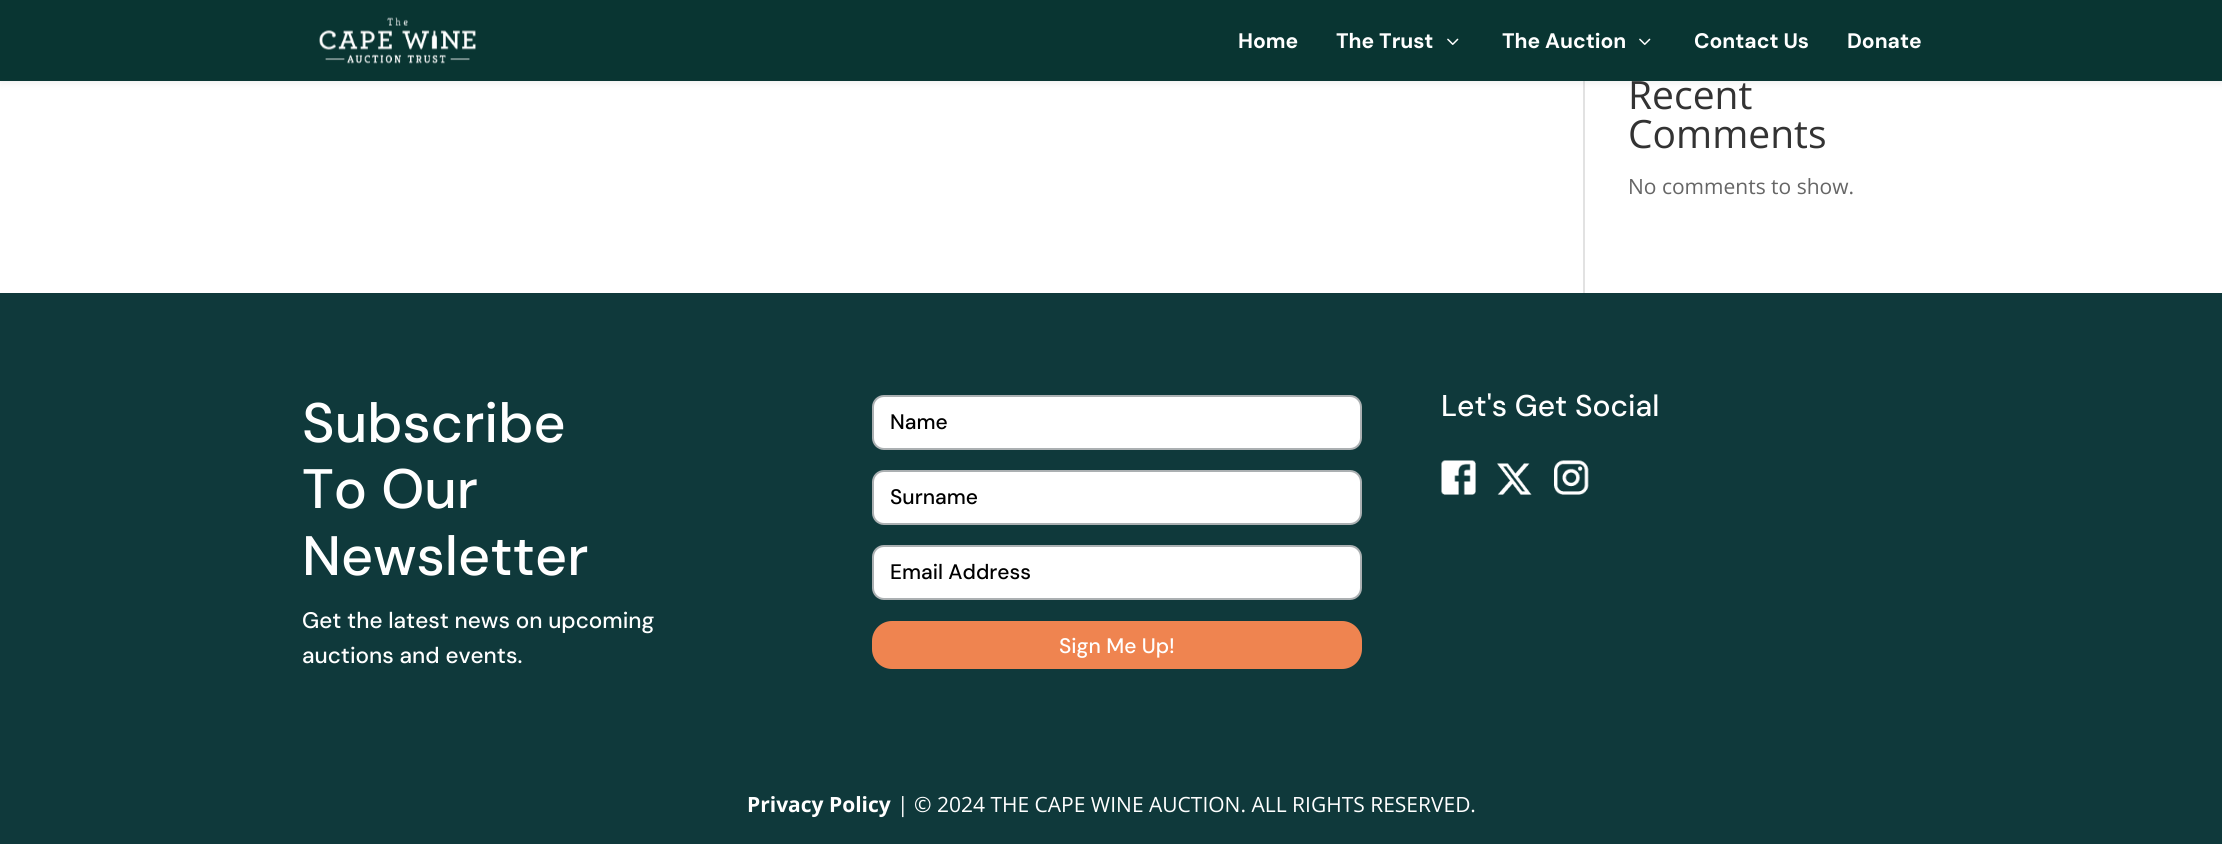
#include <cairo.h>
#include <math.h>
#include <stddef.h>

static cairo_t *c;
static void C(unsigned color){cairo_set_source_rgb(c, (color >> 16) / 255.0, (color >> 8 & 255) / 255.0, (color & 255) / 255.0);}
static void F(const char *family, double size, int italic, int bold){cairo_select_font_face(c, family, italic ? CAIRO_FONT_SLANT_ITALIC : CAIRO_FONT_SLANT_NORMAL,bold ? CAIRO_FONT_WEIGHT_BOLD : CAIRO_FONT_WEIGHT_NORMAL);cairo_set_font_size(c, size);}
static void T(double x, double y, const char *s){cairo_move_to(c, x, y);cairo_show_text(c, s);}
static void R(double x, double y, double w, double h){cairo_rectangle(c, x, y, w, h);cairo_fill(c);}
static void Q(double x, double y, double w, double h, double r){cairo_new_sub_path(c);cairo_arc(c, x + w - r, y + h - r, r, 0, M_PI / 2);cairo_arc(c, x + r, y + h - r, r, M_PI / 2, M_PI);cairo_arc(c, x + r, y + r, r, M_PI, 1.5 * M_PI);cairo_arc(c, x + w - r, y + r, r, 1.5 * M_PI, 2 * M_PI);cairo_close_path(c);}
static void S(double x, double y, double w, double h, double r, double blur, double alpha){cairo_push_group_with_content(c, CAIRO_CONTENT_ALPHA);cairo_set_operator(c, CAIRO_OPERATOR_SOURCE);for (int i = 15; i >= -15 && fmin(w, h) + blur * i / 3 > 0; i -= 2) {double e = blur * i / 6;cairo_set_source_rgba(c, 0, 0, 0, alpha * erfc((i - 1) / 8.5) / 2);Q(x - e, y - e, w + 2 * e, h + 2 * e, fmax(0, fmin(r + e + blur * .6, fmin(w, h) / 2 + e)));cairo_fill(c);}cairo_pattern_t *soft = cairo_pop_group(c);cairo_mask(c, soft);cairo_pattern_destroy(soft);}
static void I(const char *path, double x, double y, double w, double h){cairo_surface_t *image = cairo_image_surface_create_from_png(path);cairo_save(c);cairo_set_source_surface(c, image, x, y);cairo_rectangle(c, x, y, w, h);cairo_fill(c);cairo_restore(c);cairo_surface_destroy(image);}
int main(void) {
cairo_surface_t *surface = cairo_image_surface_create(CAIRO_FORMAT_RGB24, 2222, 844);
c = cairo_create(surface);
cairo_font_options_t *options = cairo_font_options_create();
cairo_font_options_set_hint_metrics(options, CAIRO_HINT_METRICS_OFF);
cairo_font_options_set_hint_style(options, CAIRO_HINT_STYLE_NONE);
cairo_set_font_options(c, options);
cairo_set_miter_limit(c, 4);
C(0xffffff);
cairo_paint(c);
C(0xe2e2e2);
R(1583,81,2,212);
C(0x000000);
S(0,0,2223,81,0,5,.1);
C(0x093532);
R(0,0,2222,81);
I("1.png",319,17,157,47);
F("DM Sans",21,0,1);
C(0xffffff);
T(1238,48,"Home");
T(1336,48,"The Trust");
I("2.png",1447,38,12,7);
T(1502,48,"The Auction");
I("2.png",1639,38,12,7);
T(1694,48,"Contact Us");
T(1847,48,"Donate");
F("Open Sans",39,0,0);
C(0x333333);
T(1628,109,"Recent");
T(1628,148,"Comments");
F("Open Sans",21,0,0);
C(0x666666);
T(1628,194,"No comments to show.");
C(0x0f393b);
R(0,293,2222,551);
F("DM Sans Medium",55.5,0,0);
C(0xffffff);
T(302,442,"Subscribe");
T(302,508,"To Our");
T(302,575,"Newsletter");
F("DM Sans Medium",22.5,0,0);
T(302,628,"Get the latest news on upcoming");
T(302,663,"auctions and events.");
Q(873,396,488,53,11);
cairo_fill_preserve(c);
C(0xabb0b2);
cairo_stroke(c);
F("DM Sans Medium",21,0,0);
C(0x000000);
T(890,429,"Name");
C(0xffffff);
Q(873,471,488,53,11);
cairo_fill_preserve(c);
C(0xabb0b2);
cairo_stroke(c);
C(0x000000);
T(890,504,"Surname");
C(0xffffff);
Q(873,546,488,53,11);
cairo_fill_preserve(c);
C(0xabb0b2);
cairo_stroke(c);
C(0x000000);
T(890,579,"Email Address");
C(0xef8450);
Q(873,622,488,46,19);
cairo_fill_preserve(c);
cairo_stroke(c);
C(0xffffff);
T(1059,653,"Sign Me Up!");
F("DM Sans Medium",30,0,0);
T(1441,416,"Let's Get Social");
I("3.png",1441,460,35,35);
I("4.png",1497,463,35,32);
I("5.png",1554,460,35,35);
F("Open Sans",21,0,1);
T(747,812,"Privacy Policy");
F("Open Sans",21,0,0);
T(897,812,"| © 2024 THE CAPE WINE AUCTION. ALL RIGHTS RESERVED.");
cairo_surface_write_to_png(surface, "o.png");
cairo_font_options_destroy(options);
cairo_destroy(c);
cairo_surface_destroy(surface);
return 0;
}
